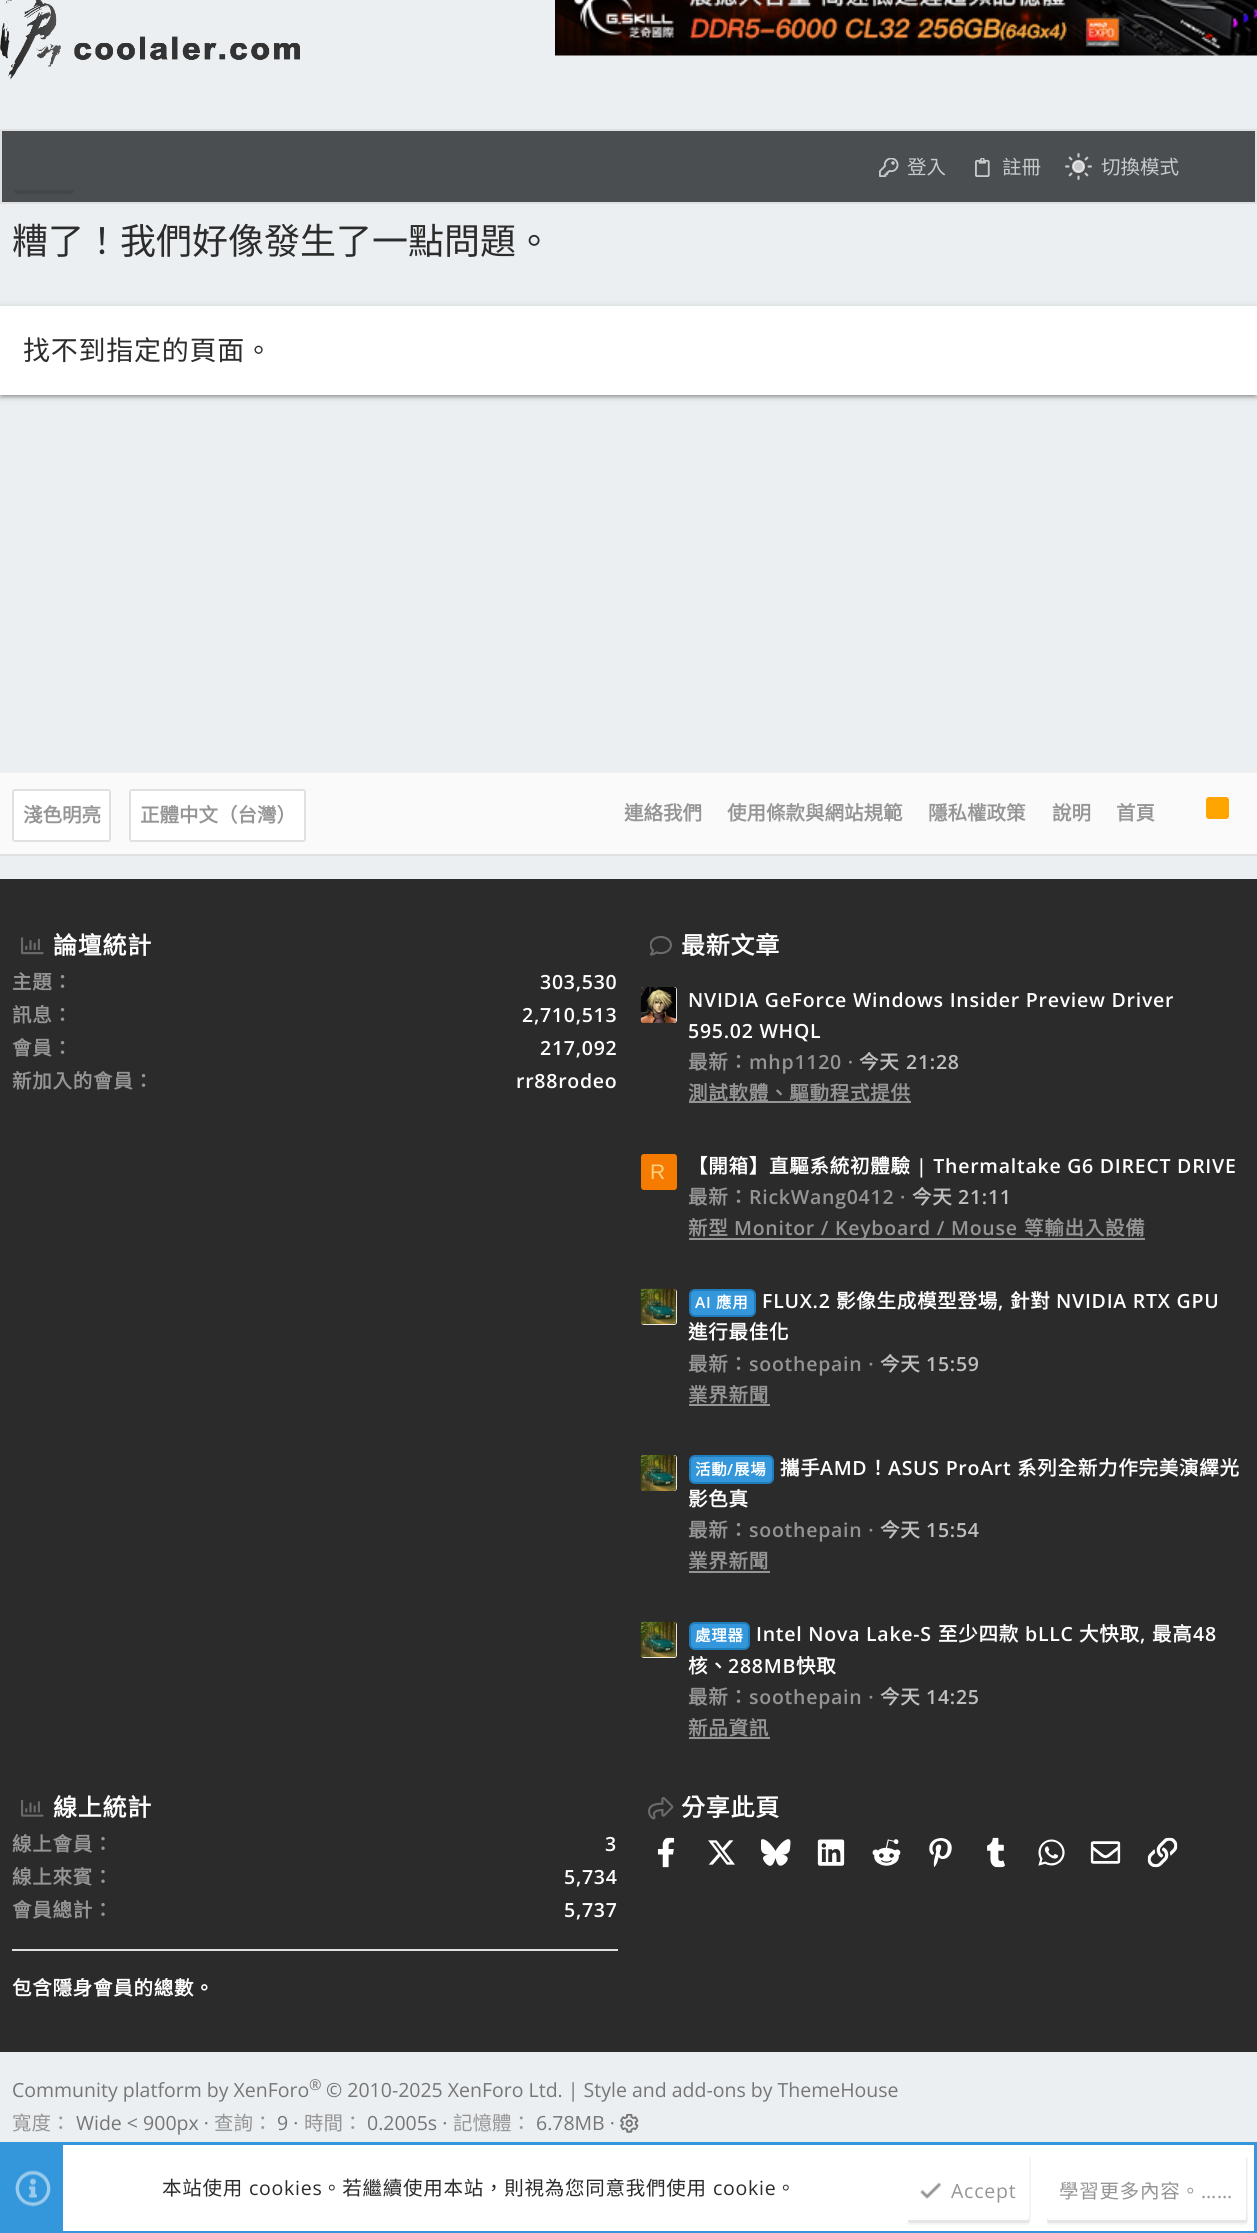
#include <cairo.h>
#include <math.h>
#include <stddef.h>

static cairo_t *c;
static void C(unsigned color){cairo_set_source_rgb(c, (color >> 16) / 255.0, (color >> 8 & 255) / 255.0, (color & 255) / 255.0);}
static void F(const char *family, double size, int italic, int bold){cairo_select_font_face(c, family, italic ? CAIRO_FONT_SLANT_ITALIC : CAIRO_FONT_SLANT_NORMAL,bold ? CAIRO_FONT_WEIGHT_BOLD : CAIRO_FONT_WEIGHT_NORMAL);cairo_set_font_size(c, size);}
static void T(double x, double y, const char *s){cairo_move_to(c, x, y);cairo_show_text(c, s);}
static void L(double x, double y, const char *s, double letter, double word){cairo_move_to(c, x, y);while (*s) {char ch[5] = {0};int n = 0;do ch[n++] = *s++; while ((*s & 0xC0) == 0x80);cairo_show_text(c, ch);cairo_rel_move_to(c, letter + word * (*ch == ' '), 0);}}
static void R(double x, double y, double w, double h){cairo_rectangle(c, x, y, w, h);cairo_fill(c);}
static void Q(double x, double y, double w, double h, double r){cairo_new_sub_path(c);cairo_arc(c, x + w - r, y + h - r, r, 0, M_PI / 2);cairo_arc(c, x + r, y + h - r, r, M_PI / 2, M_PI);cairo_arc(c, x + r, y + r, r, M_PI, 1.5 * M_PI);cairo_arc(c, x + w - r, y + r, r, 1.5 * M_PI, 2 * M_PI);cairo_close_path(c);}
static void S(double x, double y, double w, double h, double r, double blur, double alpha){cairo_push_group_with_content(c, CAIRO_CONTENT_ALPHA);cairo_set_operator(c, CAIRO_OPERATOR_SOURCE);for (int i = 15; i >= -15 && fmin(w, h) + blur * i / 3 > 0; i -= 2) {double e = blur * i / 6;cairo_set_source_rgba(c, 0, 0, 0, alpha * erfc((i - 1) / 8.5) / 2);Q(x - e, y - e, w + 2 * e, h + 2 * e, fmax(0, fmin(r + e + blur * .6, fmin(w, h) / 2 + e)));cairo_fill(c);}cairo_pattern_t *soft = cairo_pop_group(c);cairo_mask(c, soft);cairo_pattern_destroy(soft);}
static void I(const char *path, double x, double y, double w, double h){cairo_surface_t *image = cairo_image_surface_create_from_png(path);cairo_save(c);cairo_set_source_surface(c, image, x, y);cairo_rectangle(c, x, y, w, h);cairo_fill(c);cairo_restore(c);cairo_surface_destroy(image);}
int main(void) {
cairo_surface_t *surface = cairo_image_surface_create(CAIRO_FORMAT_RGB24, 1257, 2233);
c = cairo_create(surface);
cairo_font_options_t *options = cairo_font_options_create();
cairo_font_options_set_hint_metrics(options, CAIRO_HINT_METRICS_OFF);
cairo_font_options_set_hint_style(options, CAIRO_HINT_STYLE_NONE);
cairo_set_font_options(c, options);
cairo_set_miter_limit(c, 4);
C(0xeceff1);
cairo_paint(c);
I("1.png",0,0,300,80);
I("2.png",555,0,702,56);
C(0x4a4e51);
cairo_rectangle(c,1,130,1255,73);
cairo_fill_preserve(c);
C(0xe0e0e0);
cairo_stroke(c);
I("3.png",879,158,20,19);
F("Noto Sans CJK TC",19.5,0,0);
C(0xc9cacb);
T(907,174,"登入");
I("4.png",975,158,15,19);
T(1002,174,"註冊");
I("5.png",1065,153,27,27);
T(1101,174,"切換模式");
C(0x434649);
cairo_new_path(c);
cairo_move_to(c,14,188);
cairo_curve_to(c,14,196,17,194,26,194);
cairo_line_to(c,62,194);
cairo_curve_to(c,71,194,74,196,74,188);
cairo_curve_to(c,74,189,72,190,70,190);
cairo_line_to(c,16,190);
cairo_curve_to(c,15,190,14,189,14,188);
cairo_close_path(c);
cairo_fill(c);
F("Noto Sans CJK TC",36,0,0);
C(0x2c2c2c);
T(12,254,"糟了！我們好像發生了一點問題。");
C(0x000000);
S(0,308,1257,88,0,4,.2);
S(3,314,1251,82,0,1,.12);
S(0,309,1257,89,0,1.5,.14);
C(0xffffff);
R(0,306,1257,89);
F("Noto Sans CJK TC",27,0,0);
C(0x2c2c2c);
L(23,360,"找不到指定的頁面。",.75,0);
C(0xfafafa);
R(0,773,1257,81);
C(0xe0e0e0);
R(0,854,1257,2);
C(0xffffff);
Q(13,790,97,51,2);
cairo_fill_preserve(c);
C(0xe0e0e0);
cairo_stroke(c);
F("Noto Sans CJK TC",19.5,0,1);
C(0x959595);
T(23,822,"淺色明亮");
C(0xffffff);
Q(130,790,175,51,2);
cairo_fill_preserve(c);
C(0xe0e0e0);
cairo_stroke(c);
C(0x959595);
T(140,822,"正體中文（台灣）");
T(624,820,"連絡我們");
T(727,820,"使用條款與網站規範");
T(928,820,"隱私權政策");
T(1052,820,"說明");
T(1116,820,"首頁");
C(0xffa500);
Q(1206,797,23,22,3);
cairo_fill(c);
C(0x2b2b2b);
R(0,879,1257,1173);
I("6.png",21,937,23,18);
F("Noto Sans CJK TC",24,0,1);
C(0xffffff);
L(53,954,"論壇統計",.75,0);
F("Noto Sans CJK TC",19.5,0,1);
C(0x959595);
L(12,989,"主題：",.75,0);
F("Open Sans SemiBold",19.5,0,0);
C(0xffffff);
L(540,989,"303,530",.75,0);
F("Noto Sans CJK TC",19.5,0,1);
C(0x959595);
L(12,1022,"訊息：",.75,0);
F("Open Sans SemiBold",19.5,0,0);
C(0xffffff);
L(522,1022,"2,710,513",.75,0);
F("Noto Sans CJK TC",19.5,0,1);
C(0x959595);
L(12,1055,"會員：",.75,0);
F("Open Sans SemiBold",19.5,0,0);
C(0xffffff);
L(540,1055,"217,092",.75,0);
F("Noto Sans CJK TC",19.5,0,1);
C(0x959595);
L(12,1088,"新加入的會員：",.75,0);
F("Open Sans SemiBold",19.5,0,0);
C(0xffffff);
L(516,1088,"rr88rodeo",.75,0);
I("7.png",650,936,22,20);
F("Noto Sans CJK TC",24,0,1);
L(681,954,"最新文章",.75,0);
Q(641,987,36,36,3);
cairo_fill(c);
I("8.png",640,987,37,36);
F("Open Sans SemiBold",19.5,0,0);
L(688,1007,"NVIDIA GeForce Windows Insider Preview Driver",.75,0);
L(688,1038,"595.02 WHQL",.75,0);
F("Noto Sans CJK TC",19.5,0,1);
C(0x959595);
L(688,1069,"最新：",.75,0);
F("Open Sans SemiBold",19.5,0,0);
L(749,1069,"mhp1120 ·",.75,0);
F("Noto Sans CJK TC",19.5,0,1);
C(0xbfbfbf);
L(859,1069,"今天",.75,0);
F("Open Sans SemiBold",19.5,0,0);
L(906,1069,"21:28",.75,0);
C(0x959595);
R(689,1101,222,2);
F("Noto Sans CJK TC",19.5,0,1);
L(688,1100,"測試軟體、驅動程式提供",.75,0);
C(0xf57c00);
Q(641,1154,36,36,3);
cairo_fill(c);
F("Liberation Sans",21,0,0);
C(0xffd180);
L(650,1179,"R",.75,0);
F("Noto Sans CJK TC",19.5,0,1);
C(0xffffff);
L(688,1173,"【開箱】直驅系統初體驗",.75,0);
F("Open Sans SemiBold",19.5,0,0);
L(916,1173,"| Thermaltake G6 DIRECT DRIVE",.75,0);
F("Noto Sans CJK TC",19.5,0,1);
C(0x959595);
L(688,1204,"最新：",.75,0);
F("Open Sans SemiBold",19.5,0,0);
L(749,1204,"RickWang0412 ·",.75,0);
F("Noto Sans CJK TC",19.5,0,1);
C(0xbfbfbf);
L(912,1204,"今天",.75,0);
F("Open Sans SemiBold",19.5,0,0);
L(958,1204,"21:11",.75,0);
F("Noto Sans CJK TC",19.5,0,1);
C(0x959595);
L(688,1235,"新型",.75,0);
R(689,1238,456,2);
F("Open Sans SemiBold",19.5,0,0);
L(734,1235,"Monitor / Keyboard / Mouse",.75,0);
F("Noto Sans CJK TC",19.5,0,1);
L(1024,1235,"等輸出入設備",.75,0);
C(0xffffff);
Q(641,1289,36,36,3);
cairo_fill(c);
I("9.png",640,1288,37,37);
C(0x3497db);
Q(690,1290,65,26,5);
cairo_fill_preserve(c);
C(0x217cbb);
cairo_stroke(c);
F("Open Sans SemiBold",15.5,0,0);
C(0xffffff);
L(695,1308,"AI",.75,0);
F("Noto Sans CJK TC",15.5,0,1);
L(716,1308,"應用",.75,0);
F("Open Sans SemiBold",19.5,0,0);
L(762,1308,"FLUX.2",.75,0);
F("Noto Sans CJK TC",19.5,0,1);
L(836,1308,"影像生成模型登場",.75,0);
F("Open Sans SemiBold",19.5,0,0);
L(998,1308,",",.75,0);
F("Noto Sans CJK TC",19.5,0,1);
L(1010,1308,"針對",.75,0);
F("Open Sans SemiBold",19.5,0,0);
L(1056,1308,"NVIDIA RTX GPU",.75,0);
F("Noto Sans CJK TC",19.5,0,1);
L(688,1339,"進行最佳化",.75,0);
C(0x959595);
L(688,1371,"最新：",.75,0);
F("Open Sans SemiBold",19.5,0,0);
L(749,1371,"soothepain ·",.75,0);
F("Noto Sans CJK TC",19.5,0,1);
C(0xbfbfbf);
L(880,1371,"今天",.75,0);
F("Open Sans SemiBold",19.5,0,0);
L(926,1371,"15:59",.75,0);
F("Noto Sans CJK TC",19.5,0,1);
C(0x959595);
L(688,1402,"業界新聞",.75,0);
R(689,1404,81,2);
C(0xffffff);
Q(641,1455,36,36,3);
cairo_fill(c);
I("10.png",640,1455,37,36);
C(0x3497db);
Q(690,1456,83,27,5);
cairo_fill_preserve(c);
C(0x217cbb);
cairo_stroke(c);
F("Noto Sans CJK TC",15.5,0,1);
C(0xffffff);
L(695,1475,"活動",.75,0);
F("Open Sans SemiBold",15.5,0,0);
L(727,1475,"/",.75,0);
F("Noto Sans CJK TC",15.5,0,1);
L(734,1475,"展場",.75,0);
F("Noto Sans CJK TC",19.5,0,1);
L(780,1475,"攜手",.75,0);
F("Open Sans SemiBold",19.5,0,0);
L(820,1475,"AMD",.75,0);
F("Noto Sans CJK TC",19.5,0,1);
L(868,1475,"！",.75,0);
F("Open Sans SemiBold",19.5,0,0);
L(888,1475,"ASUS ProArt",.75,0);
F("Noto Sans CJK TC",19.5,0,1);
L(1017,1475,"系列全新力作完美演繹光",.75,0);
L(688,1506,"影色真",.75,0);
C(0x959595);
L(688,1537,"最新：",.75,0);
F("Open Sans SemiBold",19.5,0,0);
L(749,1537,"soothepain ·",.75,0);
F("Noto Sans CJK TC",19.5,0,1);
C(0xbfbfbf);
L(880,1537,"今天",.75,0);
F("Open Sans SemiBold",19.5,0,0);
L(926,1537,"15:54",.75,0);
F("Noto Sans CJK TC",19.5,0,1);
C(0x959595);
L(688,1568,"業界新聞",.75,0);
R(689,1571,81,2);
C(0xffffff);
Q(641,1622,36,36,3);
cairo_fill(c);
I("9.png",640,1621,37,37);
C(0x3497db);
Q(690,1623,59,26,5);
cairo_fill_preserve(c);
C(0x217cbb);
cairo_stroke(c);
F("Noto Sans CJK TC",15.5,0,1);
C(0xffffff);
L(695,1641,"處理器",.75,0);
F("Open Sans SemiBold",19.5,0,0);
L(756,1641,"Intel Nova Lake-S",.75,0);
F("Noto Sans CJK TC",19.5,0,1);
L(938,1641,"至少四款",.75,0);
F("Open Sans SemiBold",19.5,0,0);
L(1025,1641,"bLLC",.75,0);
F("Noto Sans CJK TC",19.5,0,1);
L(1079,1641,"大快取",.75,0);
F("Open Sans SemiBold",19.5,0,0);
L(1140,1641,",",.75,0);
F("Noto Sans CJK TC",19.5,0,1);
L(1152,1641,"最高",.75,0);
F("Open Sans SemiBold",19.5,0,0);
L(1193,1641,"48",.75,0);
F("Noto Sans CJK TC",19.5,0,1);
L(688,1673,"核、",.75,0);
F("Open Sans SemiBold",19.5,0,0);
L(728,1673,"288MB",.75,0);
F("Noto Sans CJK TC",19.5,0,1);
L(796,1673,"快取",.75,0);
C(0x959595);
L(688,1704,"最新：",.75,0);
F("Open Sans SemiBold",19.5,0,0);
L(749,1704,"soothepain ·",.75,0);
F("Noto Sans CJK TC",19.5,0,1);
C(0xbfbfbf);
L(880,1704,"今天",.75,0);
F("Open Sans SemiBold",19.5,0,0);
L(926,1704,"14:25",.75,0);
F("Noto Sans CJK TC",19.5,0,1);
C(0x959595);
L(688,1735,"新品資訊",.75,0);
R(689,1737,81,2);
I("11.png",21,1799,23,18);
F("Noto Sans CJK TC",24,0,1);
C(0xffffff);
L(53,1816,"線上統計",.75,0);
F("Noto Sans CJK TC",19.5,0,1);
C(0x959595);
L(12,1851,"線上會員：",.75,0);
F("Open Sans SemiBold",19.5,0,0);
C(0xffffff);
L(605,1851,"3",.75,0);
F("Noto Sans CJK TC",19.5,0,1);
C(0x959595);
L(12,1884,"線上來賓：",.75,0);
F("Open Sans SemiBold",19.5,0,0);
C(0xffffff);
L(564,1884,"5,734",.75,0);
F("Noto Sans CJK TC",19.5,0,1);
C(0x959595);
L(12,1917,"會員總計：",.75,0);
F("Open Sans SemiBold",19.5,0,0);
C(0xffffff);
L(564,1917,"5,737",.75,0);
C(0xe0e0e0);
R(12,1949,606,2);
F("Noto Sans CJK TC",19.5,0,1);
C(0xffffff);
L(12,1995,"包含隱身會員的總數。",.75,0);
I("12.png",648,1797,26,23);
F("Noto Sans CJK TC",24,0,1);
L(681,1816,"分享此頁",.75,0);
I("13.png",657,1837,18,31);
I("14.png",708,1840,27,25);
I("15.png",761,1839,30,27);
I("16.png",817,1839,28,27);
I("17.png",872,1839,29,27);
I("18.png",929,1838,23,29);
I("19.png",987,1837,18,31);
I("20.png",1038,1839,27,27);
I("21.png",1090,1841,31,23);
I("22.png",1147,1837,31,31);
F("Open Sans",19.5,0,0);
C(0x767676);
T(12,2097,"Community platform by XenForo");
F("Open Sans",15,0,0);
T(309,2090,"®");
F("Open Sans",19.5,0,0);
T(326,2097,"© 2010-2025 XenForo Ltd. | Style and add-ons by ThemeHouse");
F("Noto Sans CJK TC",19.5,0,0);
C(0x959595);
T(12,2130,"寬度：");
F("Open Sans",19.5,0,0);
C(0x767676);
T(76,2130,"Wide < 900px ·");
F("Noto Sans CJK TC",19.5,0,0);
C(0x959595);
T(214,2130,"查詢：");
F("Open Sans",19.5,0,0);
C(0x767676);
T(277,2130,"9 ·");
F("Noto Sans CJK TC",19.5,0,0);
C(0x959595);
T(304,2130,"時間：");
F("Open Sans",19.5,0,0);
C(0x767676);
T(367,2130,"0.2005s ·");
F("Noto Sans CJK TC",19.5,0,0);
C(0x959595);
T(453,2130,"記憶體：");
F("Open Sans",19.5,0,0);
C(0x767676);
T(536,2130,"6.78MB ·");
I("23.png",620,2113,19,20);
C(0xffffff);
R(63,2145,1191,86);
cairo_rectangle(c,1.5,2143.5,1254,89);
C(0x3497db);
cairo_set_line_width(c,3);
cairo_stroke(c);
R(3,2145,60,86);
I("24.png",15,2170,36,37);
F("Noto Sans CJK TC",19.5,0,0);
C(0x2c2c2c);
L(162,2195,"本站使用",.75,0);
F("Open Sans",19.5,0,0);
L(249,2195,"cookies",.75,0);
F("Noto Sans CJK TC",19.5,0,0);
L(322,2195,"。若繼續使用本站，則視為您同意我們使用",.75,0);
F("Open Sans",19.5,0,0);
L(713,2195,"cookie",.75,0);
F("Noto Sans CJK TC",19.5,0,0);
L(776,2195,"。",.75,0);
C(0xe6e6e6);
cairo_new_path(c);
cairo_move_to(c,908,2218);
cairo_line_to(c,908,2222);
cairo_curve_to(c,908,2222,909,2223,910,2223);
cairo_line_to(c,1028,2223);
cairo_curve_to(c,1028,2223,1029,2222,1029,2222);
cairo_line_to(c,1029,2218);
cairo_line_to(c,1028,2220);
cairo_line_to(c,909,2220);
cairo_curve_to(c,908,2220,908,2219,908,2218);
cairo_close_path(c);
cairo_fill(c);
cairo_new_path(c);
cairo_move_to(c,1029,2157);
cairo_line_to(c,1030,2158.5);
cairo_line_to(c,1030,2221.5);
cairo_line_to(c,1029,2223);
cairo_line_to(c,1027.5,2224);
cairo_line_to(c,909,2224);
cairo_line_to(c,907.5,2223);
C(0xf2f2f2);
cairo_set_line_width(c,1.5);
cairo_stroke(c);
I("25.png",920,2182,22,17);
F("Open Sans",19.5,0,0);
C(0x959595);
L(951,2198,"Accept",.75,0);
C(0xe6e6e6);
cairo_new_path(c);
cairo_move_to(c,1047,2218);
cairo_line_to(c,1047,2222);
cairo_curve_to(c,1047,2222,1048,2223,1048,2223);
cairo_line_to(c,1246,2223);
cairo_curve_to(c,1246,2223,1247,2222,1247,2222);
cairo_line_to(c,1247,2158);
cairo_curve_to(c,1247,2158,1247,2157,1246,2157);
cairo_line_to(c,1246,2218);
cairo_curve_to(c,1246,2219,1246,2220,1245,2220);
cairo_line_to(c,1048,2220);
cairo_close_path(c);
cairo_fill(c);
cairo_new_path(c);
cairo_move_to(c,1246.5,2157);
cairo_line_to(c,1247,2158.5);
cairo_line_to(c,1247,2211);
cairo_curve_to(c,1247,2215.5,1249,2223.5,1245,2224);
cairo_line_to(c,1048.5,2224);
cairo_line_to(c,1047,2223);
C(0xf2f2f2);
cairo_stroke(c);
cairo_new_path(c);
cairo_move_to(c,1047,2223);
cairo_line_to(c,1046,2221.5);
cairo_line_to(c,1046,2169);
cairo_curve_to(c,1046,2164.5,1044.5,2156.5,1048.5,2156);
cairo_line_to(c,1245,2156);
cairo_line_to(c,1246.5,2157);
C(0xffffff);
cairo_stroke(c);
F("Noto Sans CJK TC",19.5,0,0);
C(0x959595);
L(1059,2198,"學習更多內容。",.75,0);
F("Open Sans",19.5,0,0);
L(1201,2198,"……",.75,0);
cairo_surface_write_to_png(surface, "o.png");
cairo_font_options_destroy(options);
cairo_destroy(c);
cairo_surface_destroy(surface);
return 0;
}
